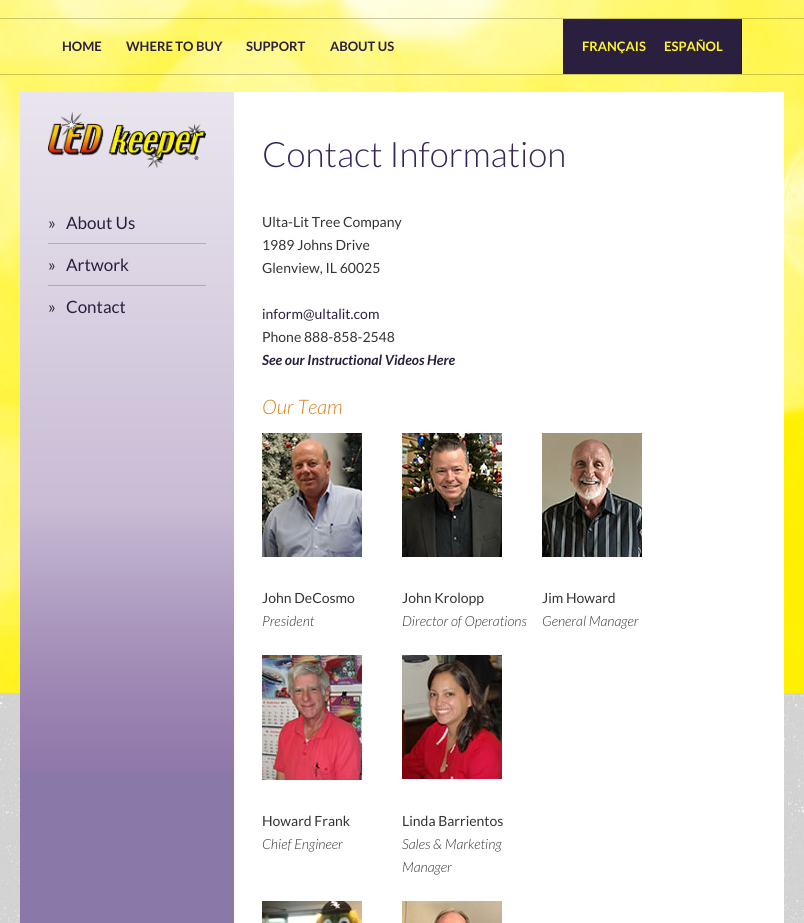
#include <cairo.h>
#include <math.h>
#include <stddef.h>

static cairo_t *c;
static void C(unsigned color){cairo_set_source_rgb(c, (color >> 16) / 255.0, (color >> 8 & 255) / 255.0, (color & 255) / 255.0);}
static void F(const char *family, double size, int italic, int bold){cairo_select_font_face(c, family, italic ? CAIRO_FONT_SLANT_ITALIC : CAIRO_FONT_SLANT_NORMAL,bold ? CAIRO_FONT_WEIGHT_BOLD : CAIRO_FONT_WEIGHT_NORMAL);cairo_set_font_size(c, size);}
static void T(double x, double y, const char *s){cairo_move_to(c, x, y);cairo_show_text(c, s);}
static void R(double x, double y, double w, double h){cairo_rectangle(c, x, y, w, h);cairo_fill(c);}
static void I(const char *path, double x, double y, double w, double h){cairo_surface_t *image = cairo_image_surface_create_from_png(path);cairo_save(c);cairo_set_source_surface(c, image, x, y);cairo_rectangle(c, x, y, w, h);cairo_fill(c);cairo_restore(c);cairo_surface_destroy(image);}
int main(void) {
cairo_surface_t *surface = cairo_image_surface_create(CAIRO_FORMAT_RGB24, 804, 923);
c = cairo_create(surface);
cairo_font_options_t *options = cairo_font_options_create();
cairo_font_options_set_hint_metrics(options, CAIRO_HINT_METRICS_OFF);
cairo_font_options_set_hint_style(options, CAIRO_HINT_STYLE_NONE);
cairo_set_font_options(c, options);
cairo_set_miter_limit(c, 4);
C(0xffffff);
cairo_paint(c);
I("1.png",0,693,804,230);
I("2.png",0,0,804,693);
cairo_set_source_rgba(c,0,0,0,0.2);
R(0,18,804,1);
R(0,74,804,1);
F("Lato",13,0,1);
C(0x2b1f40);
T(62,51,"HOME");
T(126,51,"WHERE TO BUY");
T(246,51,"SUPPORT");
T(330,51,"ABOUT US");
R(564,19,177,55);
C(0x221933);
R(563,19,1,55);
C(0xfff527);
T(582,51,"FRANÇAIS");
C(0x221933);
R(741,19,1,55);
C(0xfff527);
T(664,51,"ESPAÑOL");
C(0xffffff);
R(234,92,550,831);
C(0x8a78a9);
R(20,772,214,151);
I("3.png",20,92,214,680);
I("4.png",48,112,158,56);
C(0xb2acb7);
R(48,243,158,1);
F("Lato",17,0,0);
C(0x343434);
T(48,229,"»");
C(0x2b1f40);
T(66,229,"About Us");
C(0xafa8b6);
R(48,285,158,1);
C(0x343434);
T(48,271,"»");
C(0x2b1f40);
T(66,271,"Artwork");
C(0x343434);
T(48,313,"»");
C(0x2b1f40);
T(66,313,"Contact");
F("Lato Light",35,0,0);
C(0x37255a);
T(262,167,"Contact Information");
F("Lato",14,0,0);
C(0x343434);
T(262,227,"Ulta-Lit Tree Company");
T(262,250,"1989 Johns Drive");
T(262,273,"Glenview, IL 60025");
C(0x2b1f40);
T(262,319,"inform@ultalit.com");
C(0x343434);
T(262,342,"Phone 888-858-2548");
F("Lato",14,1,1);
C(0x2b1f40);
T(262,365,"See our Instructional Videos Here");
F("Lato Light",20,1,0);
C(0xd78120);
T(262,414,"Our Team");
I("5.png",262,433,100,124);
F("Lato",14,0,0);
C(0x343434);
T(262,603,"John DeCosmo");
F("Lato Light",14,1,0);
T(262,626,"President");
I("6.png",402,433,100,124);
F("Lato",14,0,0);
T(402,603,"John Krolopp");
F("Lato Light",14,1,0);
T(402,626,"Director of Operations");
I("7.png",542,433,100,124);
F("Lato",14,0,0);
T(542,603,"Jim Howard");
F("Lato Light",14,1,0);
T(542,626,"General Manager");
I("8.png",262,655,100,125);
F("Lato",14,0,0);
T(262,826,"Howard Frank");
F("Lato Light",14,1,0);
T(262,849,"Chief Engineer");
I("9.png",402,655,100,125);
F("Lato",14,0,0);
T(402,826,"Linda Barrientos");
F("Lato Light",14,1,0);
T(402,849,"Sales & Marketing");
T(402,872,"Manager");
I("10.png",262,901,100,22);
I("11.png",402,901,100,22);
cairo_surface_write_to_png(surface, "o.png");
cairo_font_options_destroy(options);
cairo_destroy(c);
cairo_surface_destroy(surface);
return 0;
}
